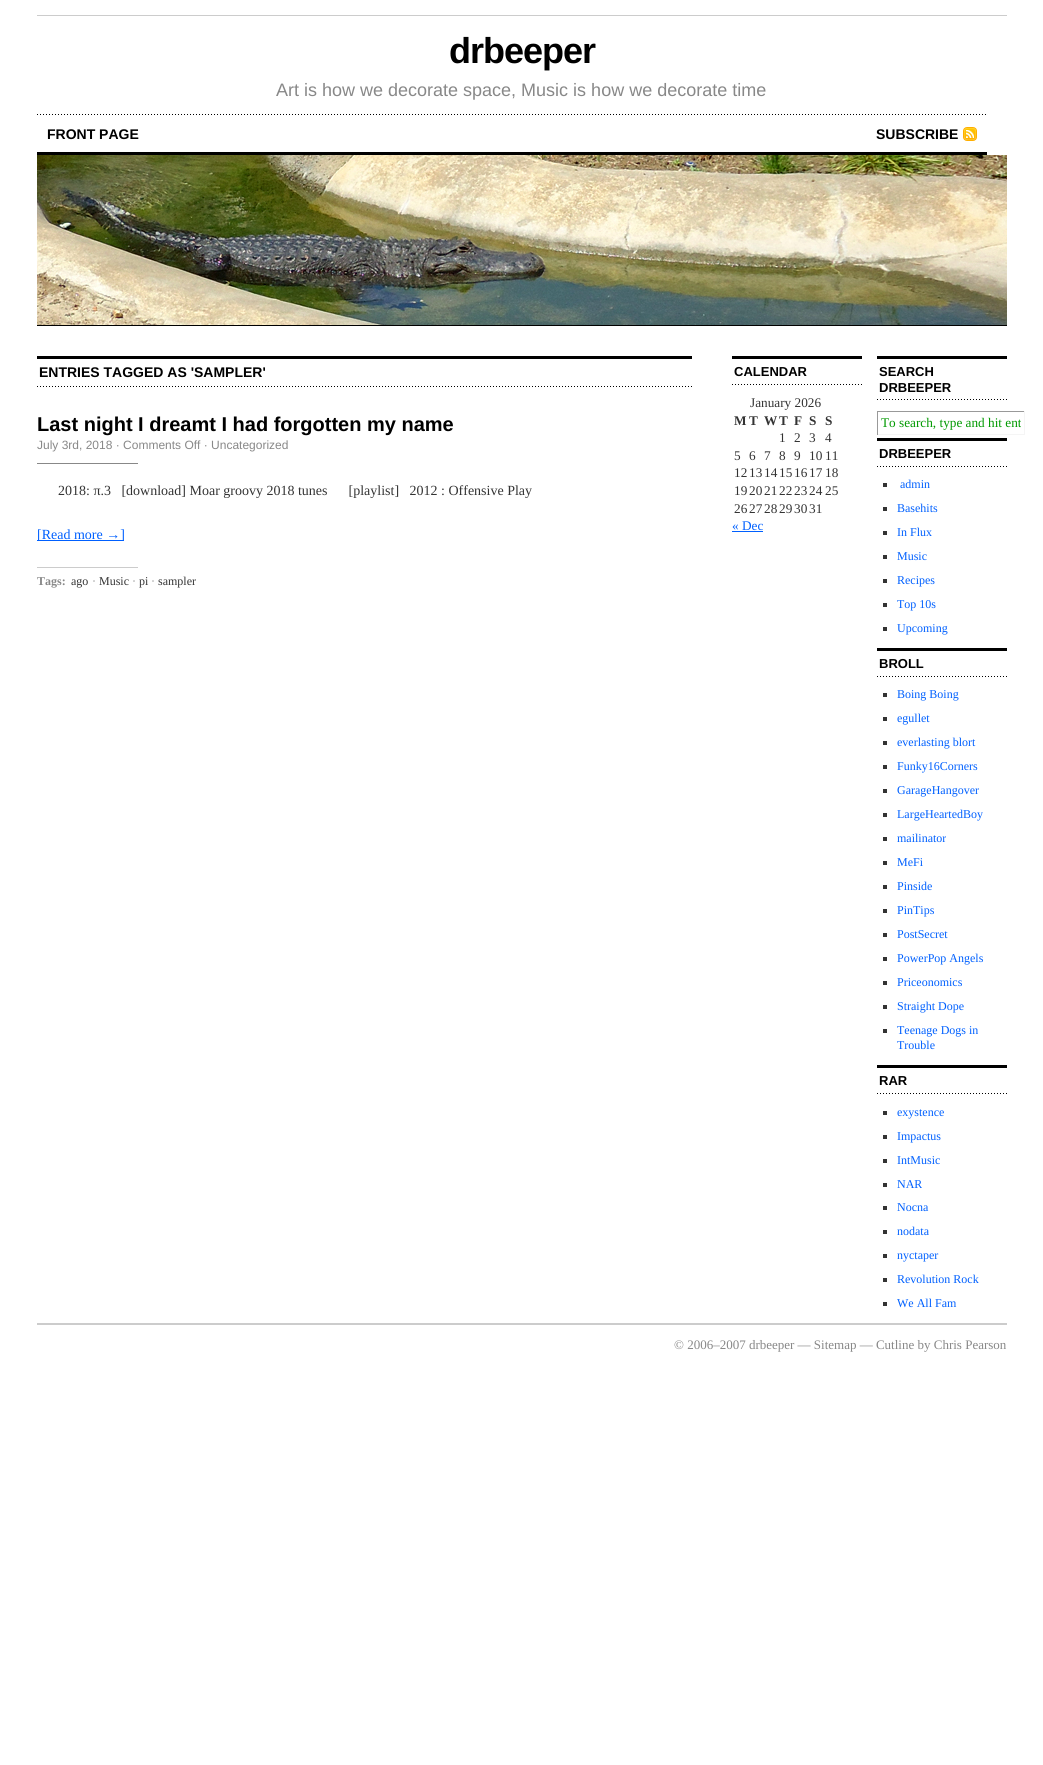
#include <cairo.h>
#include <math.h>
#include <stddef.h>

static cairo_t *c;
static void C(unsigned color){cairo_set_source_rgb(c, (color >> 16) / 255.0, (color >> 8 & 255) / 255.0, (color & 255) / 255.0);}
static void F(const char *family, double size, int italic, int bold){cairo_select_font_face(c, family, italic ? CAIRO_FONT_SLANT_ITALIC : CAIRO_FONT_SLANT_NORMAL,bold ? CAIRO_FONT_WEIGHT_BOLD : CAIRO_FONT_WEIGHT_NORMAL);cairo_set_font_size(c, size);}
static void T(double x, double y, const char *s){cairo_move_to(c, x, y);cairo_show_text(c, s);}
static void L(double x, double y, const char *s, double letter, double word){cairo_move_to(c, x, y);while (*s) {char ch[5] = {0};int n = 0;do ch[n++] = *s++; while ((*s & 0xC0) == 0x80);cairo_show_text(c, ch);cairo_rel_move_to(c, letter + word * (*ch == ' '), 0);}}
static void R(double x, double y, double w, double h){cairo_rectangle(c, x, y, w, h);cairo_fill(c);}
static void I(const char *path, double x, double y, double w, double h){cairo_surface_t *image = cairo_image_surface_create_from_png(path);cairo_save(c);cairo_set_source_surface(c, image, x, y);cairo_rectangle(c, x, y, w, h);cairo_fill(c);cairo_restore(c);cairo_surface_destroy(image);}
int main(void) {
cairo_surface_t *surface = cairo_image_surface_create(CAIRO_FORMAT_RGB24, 1043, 1765);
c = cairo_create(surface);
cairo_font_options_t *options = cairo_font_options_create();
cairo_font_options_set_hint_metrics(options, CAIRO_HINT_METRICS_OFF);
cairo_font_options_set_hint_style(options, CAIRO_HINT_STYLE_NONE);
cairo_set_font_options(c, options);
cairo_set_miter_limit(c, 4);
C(0xffffff);
cairo_paint(c);
C(0xcccccc);
R(37,15,970,1);
F("Liberation Sans",36,0,1);
C(0x000000);
L(449,63,"drbeeper",-1,0);
F("Liberation Sans",18,0,0);
C(0x888888);
T(276,96,"Art is how we decorate space, Music is how we decorate time");
I("1.png",37,114,949,1);
C(0x000000);
R(37,152,950,3);
F("Liberation Sans",14,0,1);
T(47,139,"FRONT PAGE");
T(876,139,"SUBSCRIBE");
I("2.png",963,127,14,14);
R(37,325,970,1);
I("3.png",37,155,970,170);
I("4.png",37,386,655,1);
R(37,356,655,3);
T(39,377,"ENTRIES TAGGED AS 'SAMPLER'");
F("Liberation Sans",20,0,1);
T(37,431,"Last night I dreamt I had forgotten my name");
C(0x888888);
R(37,463,101,1);
F("Liberation Sans",12,0,0);
T(37,449,"July 3rd, 2018 · Comments Off · Uncategorized");
F("Liberation Serif",14,0,0);
C(0x333333);
T(58,495,"2018: π.3   [download] Moar groovy 2018 tunes      [playlist]   2012 : Offensive Play");
C(0x0060ff);
R(37,540,87,1);
T(37,539,"[Read more →]");
C(0xcccccc);
R(37,567,101,1);
F("Liberation Serif",12,0,1);
C(0x888888);
T(37,585,"Tags:");
F("Liberation Serif",12,0,0);
C(0x333333);
T(71,585,"ago");
C(0x888888);
T(92,585,"·");
C(0x333333);
T(99,585,"Music");
C(0x888888);
T(132,585,"·");
C(0x333333);
T(139,585,"pi");
C(0x888888);
T(151,585,"·");
C(0x333333);
T(158,585,"sampler");
I("5.png",732,384,130,1);
C(0x000000);
R(732,356,130,3);
F("Liberation Sans",13,0,1);
T(734,376,"CALENDAR");
F("Liberation Serif",13.25,0,0);
C(0x333333);
T(750,407,"January 2026");
F("Liberation Serif",13.25,0,1);
T(734,425,"M");
T(749,425,"T");
T(764,425,"W");
T(779,425,"T");
T(794,425,"F");
T(809,425,"S");
T(825,425,"S");
F("Liberation Serif",13.25,0,0);
T(779,442,"1");
T(794,442,"2");
T(809,442,"3");
T(825,442,"4");
T(734,460,"5");
T(749,460,"6");
T(764,460,"7");
T(779,460,"8");
T(794,460,"9");
T(809,460,"10");
T(825,460,"11");
T(734,477,"12");
T(749,477,"13");
T(764,477,"14");
T(779,477,"15");
T(794,477,"16");
T(809,477,"17");
T(825,477,"18");
T(734,495,"19");
T(749,495,"20");
T(764,495,"21");
T(779,495,"22");
T(794,495,"23");
T(809,495,"24");
T(825,495,"25");
T(734,513,"26");
T(749,513,"27");
T(764,513,"28");
T(779,513,"29");
T(794,513,"30");
T(809,513,"31");
C(0x0060ff);
T(732,530,"« Dec");
R(732,531,31,1);
I("5.png",877,399,130,1);
C(0x000000);
R(877,356,130,3);
F("Liberation Sans",13,0,1);
T(879,376,"SEARCH");
T(879,392,"DRBEEPER");
C(0x999999);
R(877,411,148,1);
C(0xf5f5f5);
R(1024,411,1,24);
R(877,434,148,1);
C(0x999999);
R(877,411,1,24);
cairo_save(c);
cairo_rectangle(c,881,415,140,16);
cairo_clip(c);
F("Liberation Serif",13.25,0,0);
C(0x009900);
T(881,427,"To search, type and hit ent");
cairo_restore(c);
I("5.png",877,466,130,1);
C(0x000000);
R(877,438,130,3);
T(879,458,"DRBEEPER");
C(0x333333);
R(883,483,4,4);
F("Liberation Serif",12,0,0);
C(0x0060ff);
T(900,488,"admin");
C(0x333333);
R(883,507,4,4);
C(0x0060ff);
T(897,512,"Basehits");
C(0x333333);
R(883,531,4,4);
C(0x0060ff);
T(897,536,"In Flux");
C(0x333333);
R(883,555,4,4);
C(0x0060ff);
T(897,560,"Music");
C(0x333333);
R(883,579,4,4);
C(0x0060ff);
T(897,584,"Recipes");
C(0x333333);
R(883,603,4,4);
C(0x0060ff);
T(897,608,"Top 10s");
C(0x333333);
R(883,627,4,4);
C(0x0060ff);
T(897,632,"Upcoming");
I("5.png",877,676,130,1);
C(0x000000);
R(877,648,130,3);
F("Liberation Sans",13,0,1);
T(879,668,"BROLL");
C(0x333333);
R(883,693,4,4);
F("Liberation Serif",12,0,0);
C(0x0060ff);
T(897,698,"Boing Boing");
C(0x333333);
R(883,717,4,4);
C(0x0060ff);
T(897,722,"egullet");
C(0x333333);
R(883,741,4,4);
C(0x0060ff);
T(897,746,"everlasting blort");
C(0x333333);
R(883,765,4,4);
C(0x0060ff);
T(897,770,"Funky16Corners");
C(0x333333);
R(883,789,4,4);
C(0x0060ff);
T(897,794,"GarageHangover");
C(0x333333);
R(883,813,4,4);
C(0x0060ff);
T(897,818,"LargeHeartedBoy");
C(0x333333);
R(883,837,4,4);
C(0x0060ff);
T(897,842,"mailinator");
C(0x333333);
R(883,861,4,4);
C(0x0060ff);
T(897,866,"MeFi");
C(0x333333);
R(883,885,4,4);
C(0x0060ff);
T(897,890,"Pinside");
C(0x333333);
R(883,909,4,4);
C(0x0060ff);
T(897,914,"PinTips");
C(0x333333);
R(883,933,4,4);
C(0x0060ff);
T(897,938,"PostSecret");
C(0x333333);
R(883,957,4,4);
C(0x0060ff);
T(897,962,"PowerPop Angels");
C(0x333333);
R(883,981,4,4);
C(0x0060ff);
T(897,986,"Priceonomics");
C(0x333333);
R(883,1005,4,4);
C(0x0060ff);
T(897,1010,"Straight Dope");
C(0x333333);
R(883,1029,4,4);
C(0x0060ff);
T(897,1034,"Teenage Dogs in");
T(897,1049,"Trouble");
I("5.png",877,1093,130,1);
C(0x000000);
R(877,1065,130,3);
F("Liberation Sans",13,0,1);
T(879,1085,"RAR");
C(0x333333);
R(883,1111,4,4);
F("Liberation Serif",12,0,0);
C(0x0060ff);
T(897,1116,"exystence");
C(0x333333);
R(883,1135,4,4);
C(0x0060ff);
T(897,1140,"Impactus");
C(0x333333);
R(883,1159,4,4);
C(0x0060ff);
T(897,1164,"IntMusic");
C(0x333333);
R(883,1183,4,4);
C(0x0060ff);
T(897,1188,"NAR");
C(0x333333);
R(883,1206,4,4);
C(0x0060ff);
T(897,1211,"Nocna");
C(0x333333);
R(883,1230,4,4);
C(0x0060ff);
T(897,1235,"nodata");
C(0x333333);
R(883,1254,4,4);
C(0x0060ff);
T(897,1259,"nyctaper");
C(0x333333);
R(883,1278,4,4);
C(0x0060ff);
T(897,1283,"Revolution Rock");
C(0x333333);
R(883,1302,4,4);
C(0x0060ff);
T(897,1307,"We All Fam");
C(0xcccccc);
R(37,1323,970,2);
F("Liberation Serif",13,0,0);
C(0x888888);
T(674,1349,"© 2006–2007 drbeeper — Sitemap — Cutline by Chris Pearson");
cairo_surface_write_to_png(surface, "o.png");
cairo_font_options_destroy(options);
cairo_destroy(c);
cairo_surface_destroy(surface);
return 0;
}
